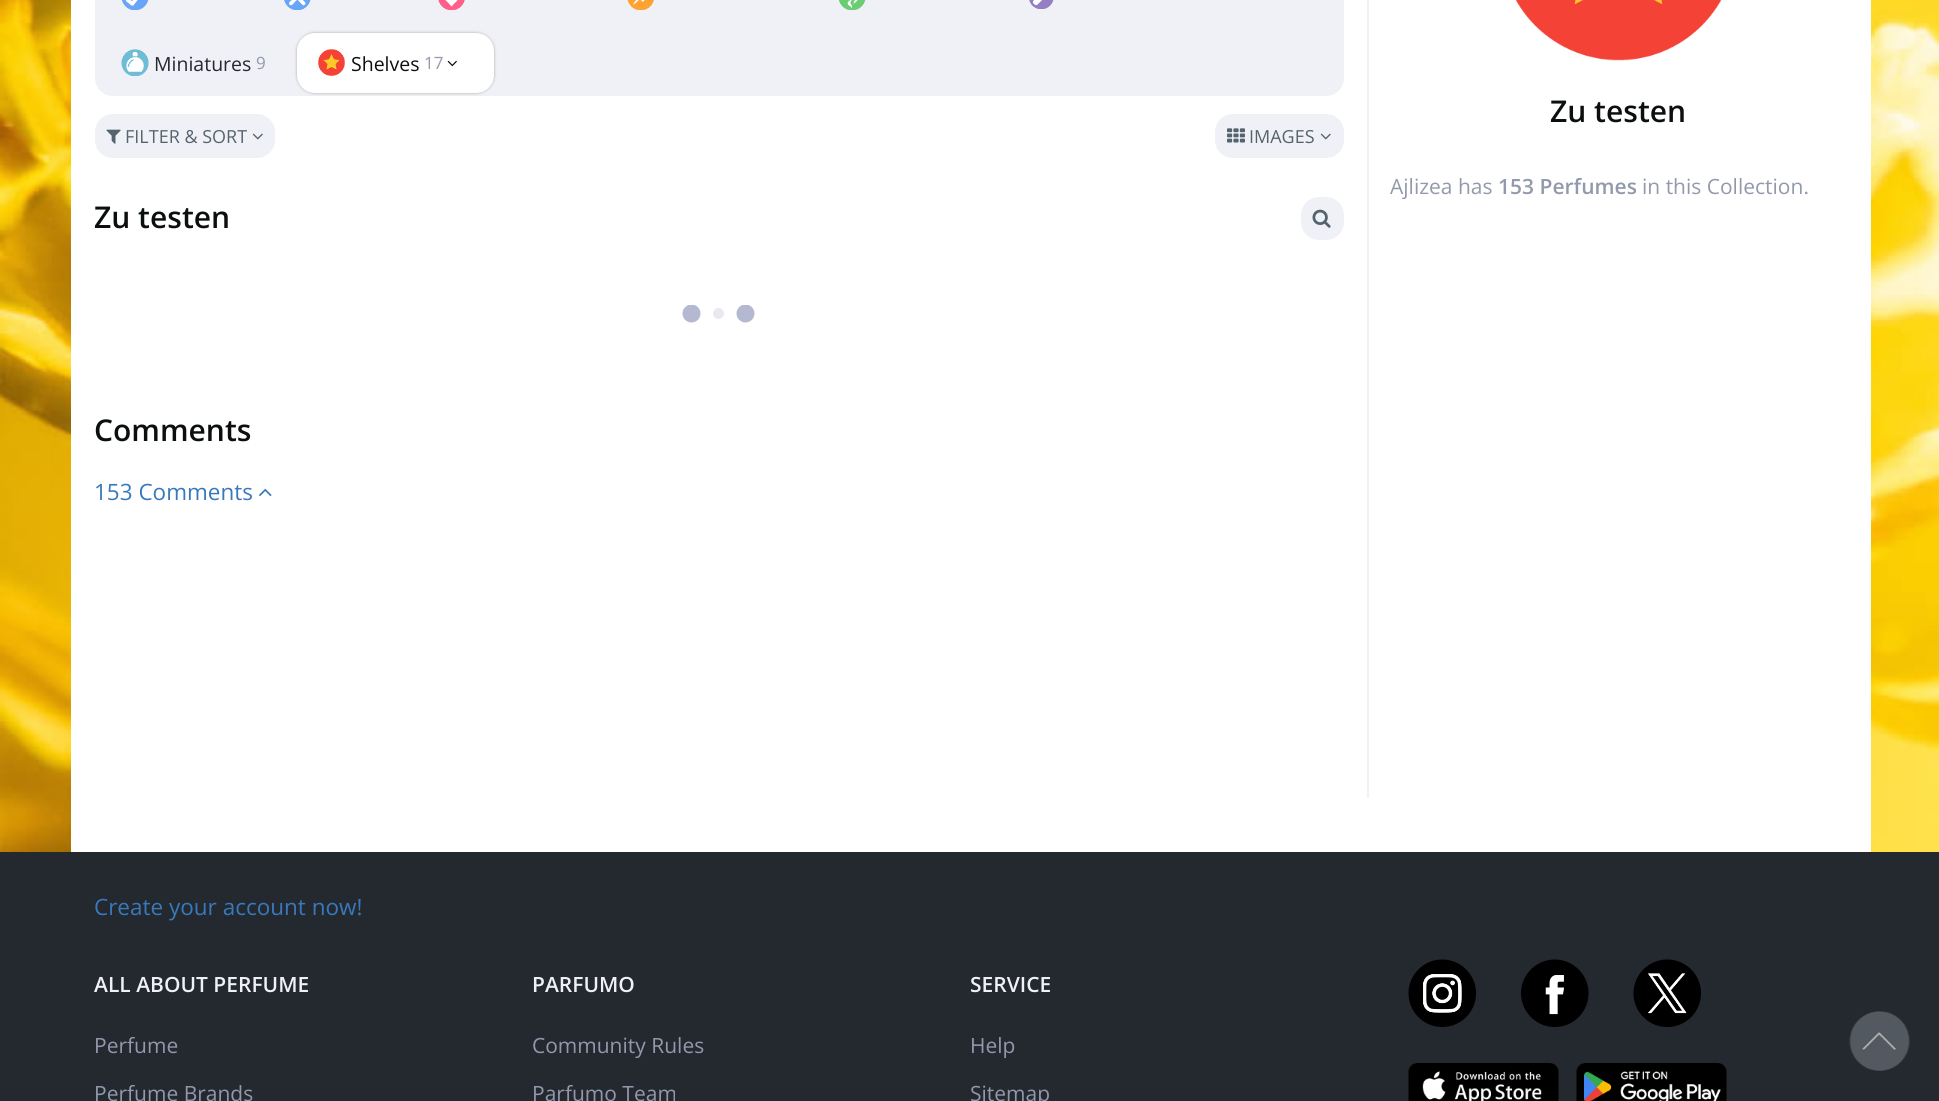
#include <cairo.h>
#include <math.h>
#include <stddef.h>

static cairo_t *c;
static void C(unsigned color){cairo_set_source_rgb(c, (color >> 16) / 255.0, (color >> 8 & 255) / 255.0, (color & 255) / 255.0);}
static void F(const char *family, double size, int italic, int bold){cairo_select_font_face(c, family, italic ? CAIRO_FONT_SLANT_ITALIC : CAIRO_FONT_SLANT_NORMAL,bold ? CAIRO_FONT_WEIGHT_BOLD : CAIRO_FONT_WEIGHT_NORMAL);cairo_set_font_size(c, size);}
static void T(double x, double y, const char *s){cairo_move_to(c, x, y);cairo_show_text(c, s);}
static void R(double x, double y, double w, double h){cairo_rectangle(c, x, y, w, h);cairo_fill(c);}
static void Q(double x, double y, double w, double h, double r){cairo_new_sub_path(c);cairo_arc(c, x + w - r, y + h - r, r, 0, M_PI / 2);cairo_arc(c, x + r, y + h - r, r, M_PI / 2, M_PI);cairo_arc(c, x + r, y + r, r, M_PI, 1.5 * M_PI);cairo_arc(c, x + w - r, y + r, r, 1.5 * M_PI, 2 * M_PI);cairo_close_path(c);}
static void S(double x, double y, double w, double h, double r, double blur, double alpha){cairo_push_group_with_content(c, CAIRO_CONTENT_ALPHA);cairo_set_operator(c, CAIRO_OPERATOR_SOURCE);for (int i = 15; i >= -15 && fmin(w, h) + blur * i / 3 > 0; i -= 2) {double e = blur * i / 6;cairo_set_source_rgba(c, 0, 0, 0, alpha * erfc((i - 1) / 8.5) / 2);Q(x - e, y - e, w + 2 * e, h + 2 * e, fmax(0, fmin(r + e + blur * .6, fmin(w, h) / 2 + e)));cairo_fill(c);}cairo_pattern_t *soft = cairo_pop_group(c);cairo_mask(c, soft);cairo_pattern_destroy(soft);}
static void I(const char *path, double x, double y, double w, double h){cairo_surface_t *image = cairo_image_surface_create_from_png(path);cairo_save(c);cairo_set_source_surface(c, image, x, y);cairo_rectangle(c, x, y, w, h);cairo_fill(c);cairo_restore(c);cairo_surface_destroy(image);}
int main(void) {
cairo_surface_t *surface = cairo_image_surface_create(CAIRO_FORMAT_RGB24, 1939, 1101);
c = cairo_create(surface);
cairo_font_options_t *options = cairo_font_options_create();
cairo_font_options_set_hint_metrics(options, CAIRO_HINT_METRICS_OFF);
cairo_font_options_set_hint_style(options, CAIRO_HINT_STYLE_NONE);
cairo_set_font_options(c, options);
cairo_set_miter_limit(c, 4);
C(0xffffff);
cairo_paint(c);
I("1.png",0,0,1939,852);
C(0xffffff);
R(71,0,1800,852);
C(0xf0f1f6);
Q(95,-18,1249,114,18);
cairo_fill(c);
I("2.png",121,0,28,10);
I("3.png",284,0,27,10);
I("4.png",438,0,27,10);
I("5.png",627,0,27,10);
I("6.png",838,0,28,10);
I("7.png",1029,0,25,9);
I("8.png",121,49,28,27);
F("Open Sans",19.5,0,0);
C(0x24282f);
T(154,71,"Miniatures");
F("Open Sans",17,0,0);
C(0x9299ac);
T(256,69,"9");
C(0xaaaaaa);
S(297,33,197,60,18,1.5,1);
C(0xffffff);
Q(297,33,197,60,18);
cairo_fill(c);
I("9.png",318,49,27,27);
F("Open Sans",19.5,0,0);
C(0x0c0f10);
T(351,71,"Shelves");
F("Open Sans",17,0,0);
C(0x9299ac);
T(424,69,"17");
I("10.png",447,60,10,7);
C(0xf0f1f6);
Q(95,114,180,44,18);
cairo_fill(c);
I("11.png",106,129,15,15);
F("Open Sans",18,0,0);
C(0x55636f);
T(125,143,"FILTER & SORT");
I("12.png",252,133,11,7);
C(0xf0f1f6);
Q(1215,114,129,44,18);
cairo_fill(c);
I("13.png",1227,128,18,15);
C(0x55636f);
T(1249,143,"IMAGES");
I("12.png",1320,133,11,7);
F("Open Sans SemiBold",30,0,0);
C(0x0c0f10);
T(94,228,"Zu testen");
C(0xf0f1f6);
Q(1301,197,43,43,18);
cairo_fill(c);
I("14.png",1312,209,19,19);
cairo_save(c);
cairo_rectangle(c,681,305,75,18);
cairo_clip(c);
C(0xb4b9d1);
cairo_arc(c,691.5,313.5,9,0,2 * M_PI);
cairo_fill(c);
cairo_restore(c);
C(0xe9eaf1);
cairo_arc(c,718.5,313.5,5.5,0,2 * M_PI);
cairo_fill(c);
cairo_save(c);
cairo_rectangle(c,681,305,75,18);
cairo_clip(c);
C(0xb4b9d1);
cairo_arc(c,745.5,313.5,9,0,2 * M_PI);
cairo_fill(c);
cairo_restore(c);
C(0x0c0f10);
T(94,441,"Comments");
F("Open Sans",22.5,0,0);
C(0x3879bb);
T(94,500,"153 Comments");
I("15.png",259,488,13,9);
C(0xf0f1f6);
R(1367,0,2,798);
I("16.png",1515,0,207,61);
F("Open Sans SemiBold",30,0,0);
C(0x0c0f10);
T(1550,122,"Zu testen");
F("Open Sans",21,0,0);
C(0x9299ac);
T(1390,194,"Ajlizea has");
F("Open Sans SemiBold",21,0,0);
T(1498,194,"153 Perfumes");
F("Open Sans",21,0,0);
T(1642,194,"in this Collection.");
C(0x24282f);
R(0,852,1939,249);
F("Open Sans",22.5,0,0);
C(0x3879bb);
T(94,915,"Create your account now!");
F("Open Sans SemiBold",21,0,0);
C(0xf0f1f6);
T(94,992,"ALL ABOUT PERFUME");
F("Open Sans",21,0,0);
C(0x9299ac);
T(94,1053,"Perfume");
T(94,1101,"Perfume Brands");
F("Open Sans SemiBold",21,0,0);
C(0xf0f1f6);
T(532,992,"PARFUMO");
F("Open Sans",21,0,0);
C(0x9299ac);
T(532,1053,"Community Rules");
T(532,1101,"Parfumo Team");
F("Open Sans SemiBold",21,0,0);
C(0xf0f1f6);
T(970,992,"SERVICE");
F("Open Sans",21,0,0);
C(0x9299ac);
T(970,1053,"Help");
T(970,1101,"Sitemap");
I("17.png",1408,959,68,68);
I("18.png",1521,959,68,68);
I("19.png",1633,959,68,68);
I("20.png",1408,1063,151,38);
I("21.png",1576,1063,151,38);
I("22.png",1849,1011,61,60);
cairo_surface_write_to_png(surface, "o.png");
cairo_font_options_destroy(options);
cairo_destroy(c);
cairo_surface_destroy(surface);
return 0;
}
